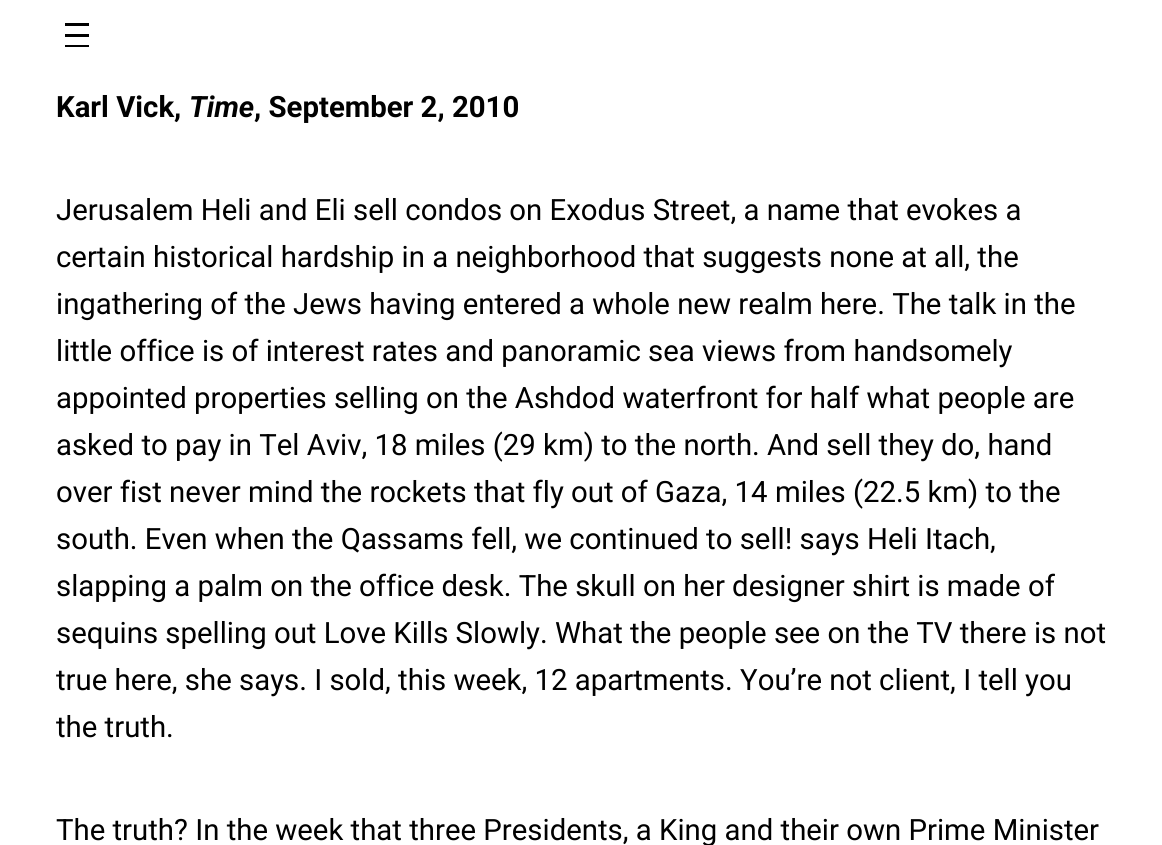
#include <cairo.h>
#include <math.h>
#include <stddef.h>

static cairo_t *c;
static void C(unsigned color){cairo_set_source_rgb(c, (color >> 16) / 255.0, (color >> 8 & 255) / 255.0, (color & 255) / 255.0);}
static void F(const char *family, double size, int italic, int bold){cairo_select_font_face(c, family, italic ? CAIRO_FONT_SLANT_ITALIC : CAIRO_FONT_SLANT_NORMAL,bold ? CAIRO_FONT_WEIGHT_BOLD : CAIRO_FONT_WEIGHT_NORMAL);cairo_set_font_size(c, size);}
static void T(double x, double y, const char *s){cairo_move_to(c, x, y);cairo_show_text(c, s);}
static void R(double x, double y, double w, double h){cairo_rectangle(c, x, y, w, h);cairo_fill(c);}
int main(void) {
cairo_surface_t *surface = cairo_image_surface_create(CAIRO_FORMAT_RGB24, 1162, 845);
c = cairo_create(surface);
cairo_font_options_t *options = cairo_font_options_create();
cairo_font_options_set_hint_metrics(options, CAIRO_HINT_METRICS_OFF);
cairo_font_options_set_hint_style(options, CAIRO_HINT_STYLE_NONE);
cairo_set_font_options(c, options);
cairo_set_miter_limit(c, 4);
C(0xffffff);
cairo_paint(c);
C(0x000000);
R(65,23,24,3);
R(65,34,24,3);
R(65,45,24,2);
F("Roboto",29.35,0,1);
T(56,117,"Karl Vick,");
F("Roboto",29.35,1,1);
T(189,117,"Time");
F("Roboto",29.35,0,1);
T(254,117,", September 2, 2010");
F("Roboto",29.35,0,0);
T(56,220,"Jerusalem Heli and Eli sell condos on Exodus Street, a name that evokes a");
T(56,267,"certain historical hardship in a neighborhood that suggests none at all, the");
T(56,314,"ingathering of the Jews having entered a whole new realm here. The talk in the");
T(56,361,"little office is of interest rates and panoramic sea views from handsomely");
T(56,408,"appointed properties selling on the Ashdod waterfront for half what people are");
T(56,455,"asked to pay in Tel Aviv, 18 miles (29 km) to the north. And sell they do, hand");
T(56,502,"over fist never mind the rockets that fly out of Gaza, 14 miles (22.5 km) to the");
T(56,549,"south. Even when the Qassams fell, we continued to sell! says Heli Itach,");
T(56,596,"slapping a palm on the office desk. The skull on her designer shirt is made of");
T(56,643,"sequins spelling out Love Kills Slowly. What the people see on the TV there is not");
T(56,690,"true here, she says. I sold, this week, 12 apartments. You’re not client, I tell you");
T(56,737,"the truth.");
T(56,840,"The truth? In the week that three Presidents, a King and their own Prime Minister");
cairo_surface_write_to_png(surface, "o.png");
cairo_font_options_destroy(options);
cairo_destroy(c);
cairo_surface_destroy(surface);
return 0;
}
